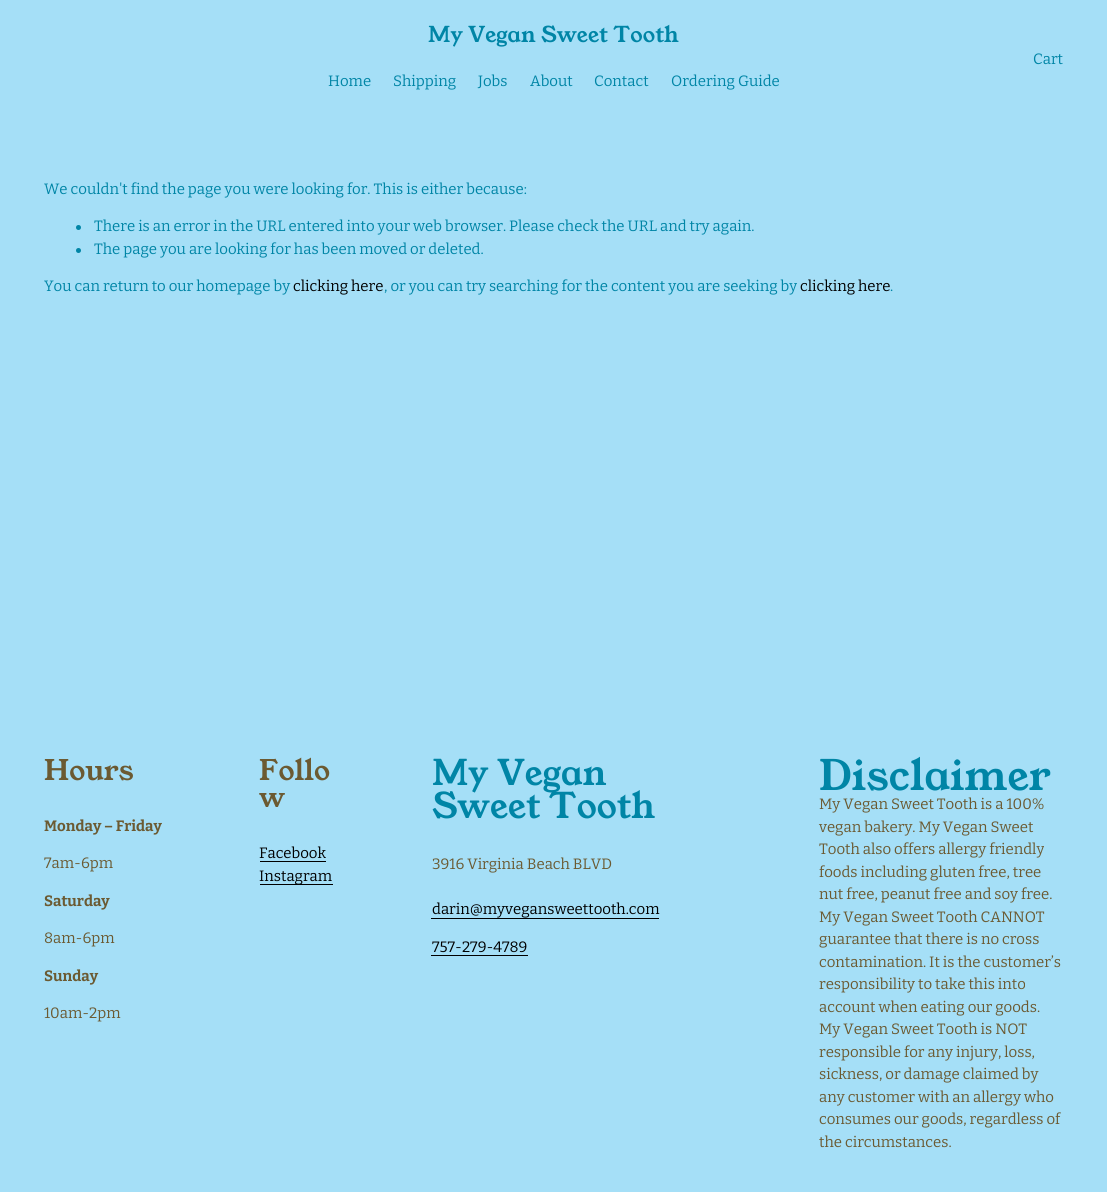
#include <cairo.h>
#include <math.h>
#include <stddef.h>

static cairo_t *c;
static void C(unsigned color){cairo_set_source_rgb(c, (color >> 16) / 255.0, (color >> 8 & 255) / 255.0, (color & 255) / 255.0);}
static void F(const char *family, double size, int italic, int bold){cairo_select_font_face(c, family, italic ? CAIRO_FONT_SLANT_ITALIC : CAIRO_FONT_SLANT_NORMAL,bold ? CAIRO_FONT_WEIGHT_BOLD : CAIRO_FONT_WEIGHT_NORMAL);cairo_set_font_size(c, size);}
static void T(double x, double y, const char *s){cairo_move_to(c, x, y);cairo_show_text(c, s);}
static void R(double x, double y, double w, double h){cairo_rectangle(c, x, y, w, h);cairo_fill(c);}
int main(void) {
cairo_surface_t *surface = cairo_image_surface_create(CAIRO_FORMAT_RGB24, 1107, 1192);
c = cairo_create(surface);
cairo_font_options_t *options = cairo_font_options_create();
cairo_font_options_set_hint_metrics(options, CAIRO_HINT_METRICS_OFF);
cairo_font_options_set_hint_style(options, CAIRO_HINT_STYLE_NONE);
cairo_set_font_options(c, options);
cairo_set_miter_limit(c, 4);
C(0xa5dff7);
cairo_paint(c);
F("Young Serif",21.6,0,0);
C(0x0085a6);
T(428,42,"My Vegan Sweet Tooth");
F("Bitter",15,0,0);
T(328,86,"Home");
T(393,86,"Shipping");
T(478,86,"Jobs");
T(530,86,"About");
T(594,86,"Contact");
T(671,86,"Ordering Guide");
T(1033,64,"Cart");
T(44,194,"We couldn't find the page you were looking for. This is either because:");
cairo_new_path(c);
cairo_arc(c,78.5,227.5,2.5,0,2 * M_PI);
cairo_fill(c);
T(94,231,"There is an error in the URL entered into your web browser. Please check the URL and try again.");
cairo_new_path(c);
cairo_arc(c,78.5,250.5,2.5,0,2 * M_PI);
cairo_fill(c);
T(94,254,"The page you are looking for has been moved or deleted.");
T(44,291,"You can return to our homepage by");
C(0x000000);
T(293,291,"clicking here");
C(0x0085a6);
T(384,291,", or you can try searching for the content you are seeking by");
C(0x000000);
T(800,291,"clicking here");
C(0x0085a6);
T(890,291,".");
F("Young Serif",28,0,0);
C(0x6b5a32);
T(44,780,"Hours");
F("Bitter",15,0,1);
T(44,831,"Monday – Friday");
F("Bitter",15,0,0);
T(44,868,"7am-6pm");
F("Bitter",15,0,1);
T(44,906,"Saturday");
F("Bitter",15,0,0);
T(44,943,"8am-6pm");
F("Bitter",15,0,1);
T(44,981,"Sunday");
F("Bitter",15,0,0);
T(44,1018,"10am-2pm");
F("Young Serif",28,0,0);
T(259,780,"Follo");
T(259,807,"w");
F("Bitter",15,0,0);
C(0x000000);
T(259,858,"Facebook");
R(260,861,66,1);
R(260,884,73,1);
T(259,881,"Instagram");
F("Young Serif",35,0,0);
C(0x0085a6);
T(432,785,"My Vegan");
T(432,818,"Sweet Tooth");
F("Bitter",15,0,0);
C(0x6b5a32);
T(432,869,"3916 Virginia Beach BLVD");
C(0x000000);
T(432,914,"darin@myvegansweettooth.com");
R(431,918,228,1);
T(432,952,"757-279-4789");
R(431,955,97,1);
F("Young Serif",41.5,0,0);
C(0x0085a6);
T(819,790,"Disclaimer");
F("Bitter",15,0,0);
C(0x6b5a32);
T(819,809,"My Vegan Sweet Tooth is a 100%");
T(819,832,"vegan bakery. My Vegan Sweet");
T(819,854,"Tooth also offers allergy friendly");
T(819,877,"foods including gluten free, tree");
T(819,899,"nut free, peanut free and soy free.");
T(819,922,"My Vegan Sweet Tooth CANNOT");
T(819,944,"guarantee that there is no cross");
T(819,967,"contamination. It is the customer’s");
T(819,989,"responsibility to take this into");
T(819,1012,"account when eating our goods.");
T(819,1034,"My Vegan Sweet Tooth is NOT");
T(819,1057,"responsible for any injury, loss,");
T(819,1079,"sickness, or damage claimed by");
T(819,1102,"any customer with an allergy who");
T(819,1124,"consumes our goods, regardless of");
T(819,1147,"the circumstances.");
cairo_surface_write_to_png(surface, "o.png");
cairo_font_options_destroy(options);
cairo_destroy(c);
cairo_surface_destroy(surface);
return 0;
}
